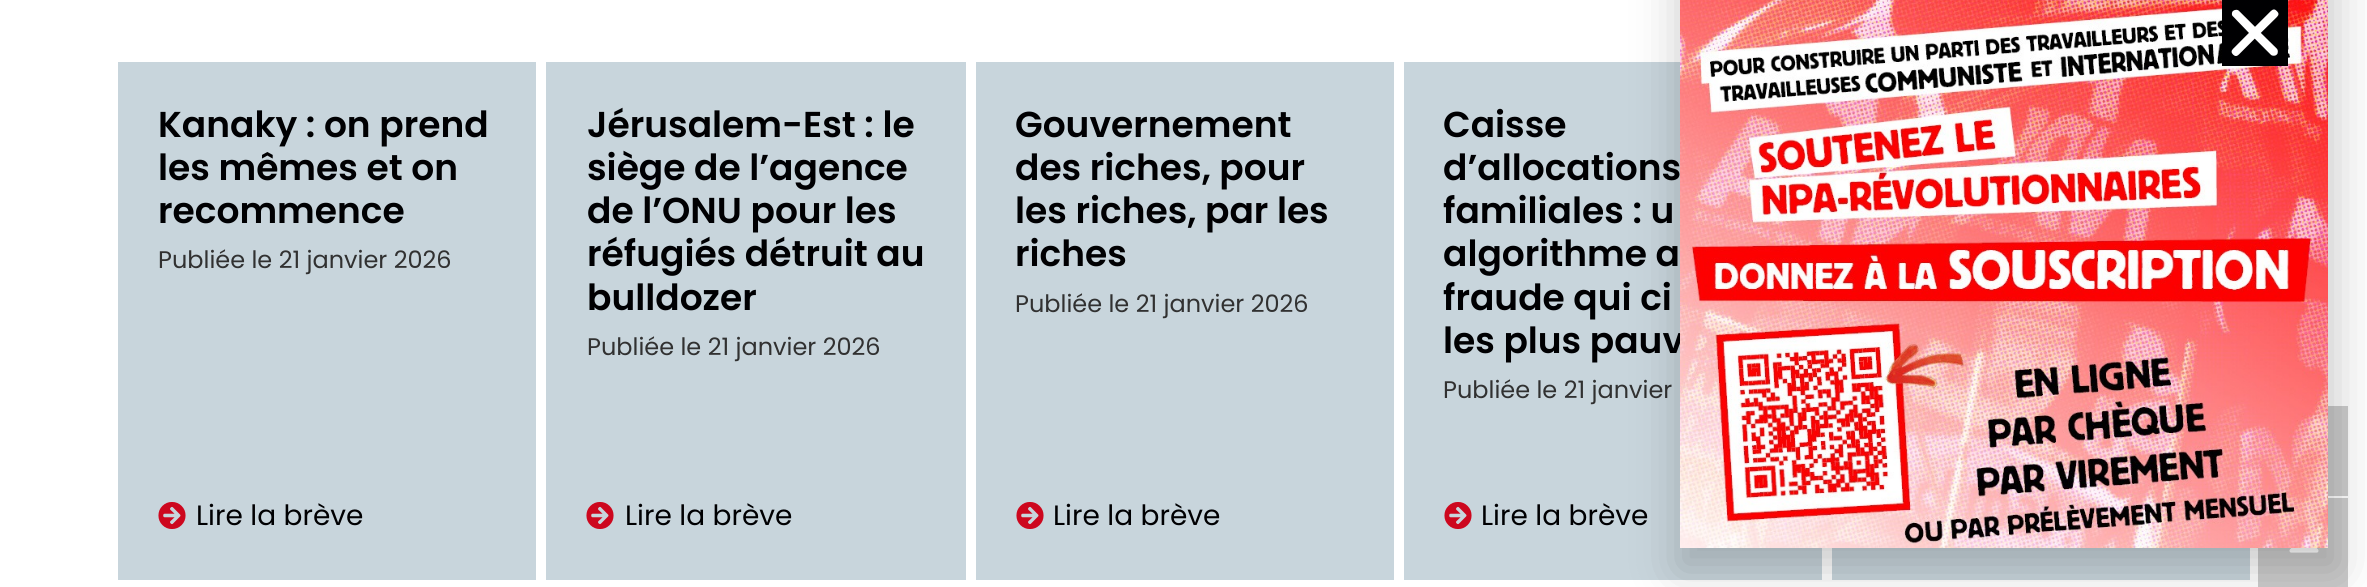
#include <cairo.h>
#include <math.h>
#include <stddef.h>

static cairo_t *c;
static void C(unsigned color){cairo_set_source_rgb(c, (color >> 16) / 255.0, (color >> 8 & 255) / 255.0, (color & 255) / 255.0);}
static void F(const char *family, double size, int italic, int bold){cairo_select_font_face(c, family, italic ? CAIRO_FONT_SLANT_ITALIC : CAIRO_FONT_SLANT_NORMAL,bold ? CAIRO_FONT_WEIGHT_BOLD : CAIRO_FONT_WEIGHT_NORMAL);cairo_set_font_size(c, size);}
static void T(double x, double y, const char *s){cairo_move_to(c, x, y);cairo_show_text(c, s);}
static void R(double x, double y, double w, double h){cairo_rectangle(c, x, y, w, h);cairo_fill(c);}
static void Q(double x, double y, double w, double h, double r){cairo_new_sub_path(c);cairo_arc(c, x + w - r, y + h - r, r, 0, M_PI / 2);cairo_arc(c, x + r, y + h - r, r, M_PI / 2, M_PI);cairo_arc(c, x + r, y + r, r, M_PI, 1.5 * M_PI);cairo_arc(c, x + w - r, y + r, r, 1.5 * M_PI, 2 * M_PI);cairo_close_path(c);}
static void S(double x, double y, double w, double h, double r, double blur, double alpha){cairo_push_group_with_content(c, CAIRO_CONTENT_ALPHA);cairo_set_operator(c, CAIRO_OPERATOR_SOURCE);for (int i = 15; i >= -15 && fmin(w, h) + blur * i / 3 > 0; i -= 2) {double e = blur * i / 6;cairo_set_source_rgba(c, 0, 0, 0, alpha * erfc((i - 1) / 8.5) / 2);Q(x - e, y - e, w + 2 * e, h + 2 * e, fmax(0, fmin(r + e + blur * .6, fmin(w, h) / 2 + e)));cairo_fill(c);}cairo_pattern_t *soft = cairo_pop_group(c);cairo_mask(c, soft);cairo_pattern_destroy(soft);}
static void I(const char *path, double x, double y, double w, double h){cairo_surface_t *image = cairo_image_surface_create_from_png(path);cairo_save(c);cairo_set_source_surface(c, image, x, y);cairo_rectangle(c, x, y, w, h);cairo_fill(c);cairo_restore(c);cairo_surface_destroy(image);}
int main(void) {
cairo_surface_t *surface = cairo_image_surface_create(CAIRO_FORMAT_RGB24, 2367, 587);
c = cairo_create(surface);
cairo_font_options_t *options = cairo_font_options_create();
cairo_font_options_set_hint_metrics(options, CAIRO_HINT_METRICS_OFF);
cairo_font_options_set_hint_style(options, CAIRO_HINT_STYLE_NONE);
cairo_set_font_options(c, options);
cairo_set_miter_limit(c, 4);
C(0xffffff);
cairo_paint(c);
C(0xc8d5dc);
R(118,62,418,518);
F("Poppins SemiBold",36,0,0);
C(0x000002);
T(158,137,"Kanaky : on prend");
T(158,180,"les mêmes et on");
T(158,223,"recommence");
F("Poppins",24,0,0);
C(0x313131);
T(158,268,"Publiée le 21 janvier 2026");
I("1.png",158,502,28,27);
F("Poppins",28,0,0);
C(0x000002);
T(196,525,"Lire la brève");
C(0xc8d5dc);
R(546,62,420,518);
F("Poppins SemiBold",36,0,0);
C(0x000002);
T(587,137,"Jérusalem-Est : le");
T(587,180,"siège de l’agence");
T(587,223,"de l’ONU pour les");
T(587,266,"réfugiés détruit au");
T(587,310,"bulldozer");
F("Poppins",24,0,0);
C(0x313131);
T(587,355,"Publiée le 21 janvier 2026");
I("1.png",586,502,28,27);
F("Poppins",28,0,0);
C(0x000002);
T(625,525,"Lire la brève");
C(0xc8d5dc);
R(976,62,418,518);
F("Poppins SemiBold",36,0,0);
C(0x000002);
T(1015,137,"Gouvernement");
T(1015,180,"des riches, pour");
T(1015,223,"les riches, par les");
T(1015,266,"riches");
F("Poppins",24,0,0);
C(0x313131);
T(1015,312,"Publiée le 21 janvier 2026");
I("1.png",1016,502,28,27);
F("Poppins",28,0,0);
C(0x000002);
T(1053,525,"Lire la brève");
C(0xc8d5dc);
R(1404,62,418,518);
F("Poppins SemiBold",36,0,0);
C(0x000002);
T(1443,137,"Caisse");
T(1443,180,"d’allocations");
T(1443,223,"familiales : u");
T(1443,266,"algorithme a");
T(1443,310,"fraude qui ci");
T(1443,353,"les plus pauv");
F("Poppins",24,0,0);
C(0x313131);
T(1443,398,"Publiée le 21 janvier");
I("1.png",1444,502,28,27);
F("Poppins",28,0,0);
C(0x000002);
T(1481,525,"Lire la brève");
C(0xc8d5dc);
R(1832,548,418,32);
C(0xcccccc);
R(2328,406,20,90);
R(2258,498,90,89);
I("2.png",2289,548,30,5);
C(0x000000);
S(1678,-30,660,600,0,23,.2);
I("3.png",1680,0,648,548);
C(0x000002);
R(2222,0,66,66);
I("4.png",2231,9,48,47);
cairo_surface_write_to_png(surface, "o.png");
cairo_font_options_destroy(options);
cairo_destroy(c);
cairo_surface_destroy(surface);
return 0;
}
